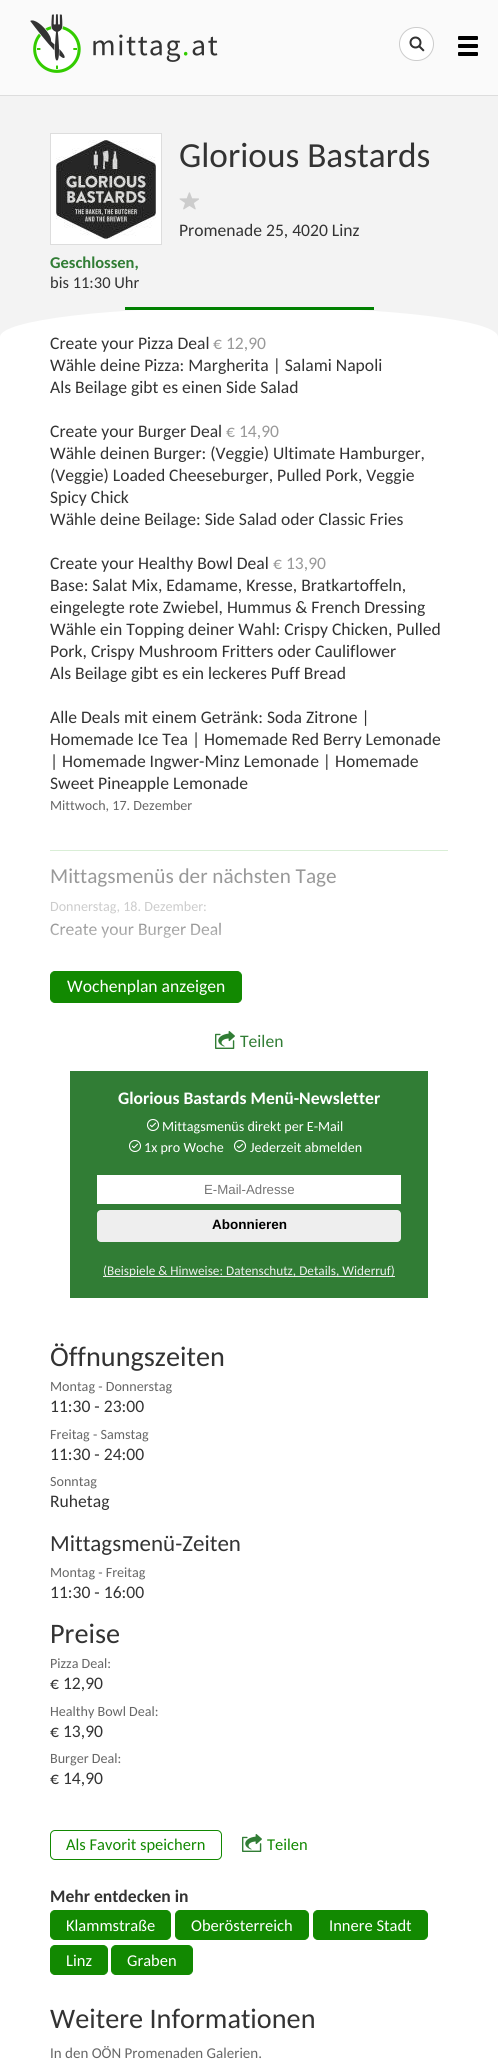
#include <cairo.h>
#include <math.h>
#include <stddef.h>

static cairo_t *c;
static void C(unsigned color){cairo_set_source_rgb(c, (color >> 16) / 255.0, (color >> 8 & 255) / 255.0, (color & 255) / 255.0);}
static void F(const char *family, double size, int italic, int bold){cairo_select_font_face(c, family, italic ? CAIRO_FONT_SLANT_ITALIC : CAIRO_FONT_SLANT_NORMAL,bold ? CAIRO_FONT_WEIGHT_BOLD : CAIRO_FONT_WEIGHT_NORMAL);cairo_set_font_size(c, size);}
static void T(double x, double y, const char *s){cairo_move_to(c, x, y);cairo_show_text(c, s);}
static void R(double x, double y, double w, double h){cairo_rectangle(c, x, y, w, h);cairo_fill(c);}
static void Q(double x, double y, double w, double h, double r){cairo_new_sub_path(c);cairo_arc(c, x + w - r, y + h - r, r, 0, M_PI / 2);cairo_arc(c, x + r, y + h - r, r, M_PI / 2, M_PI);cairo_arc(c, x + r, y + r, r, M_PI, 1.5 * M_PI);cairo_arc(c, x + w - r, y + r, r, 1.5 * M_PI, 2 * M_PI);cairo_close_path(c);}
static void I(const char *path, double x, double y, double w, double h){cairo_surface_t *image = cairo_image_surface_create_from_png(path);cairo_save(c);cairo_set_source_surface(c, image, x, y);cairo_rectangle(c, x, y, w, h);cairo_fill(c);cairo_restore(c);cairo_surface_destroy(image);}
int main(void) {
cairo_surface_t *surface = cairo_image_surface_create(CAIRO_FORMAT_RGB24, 498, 2070);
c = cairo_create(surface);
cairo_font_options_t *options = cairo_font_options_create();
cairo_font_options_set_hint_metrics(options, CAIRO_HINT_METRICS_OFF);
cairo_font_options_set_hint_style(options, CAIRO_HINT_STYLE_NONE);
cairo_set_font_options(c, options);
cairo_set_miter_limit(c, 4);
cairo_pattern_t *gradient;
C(0xf3f3f3);
cairo_paint(c);
C(0xfafafa);
R(0,0,498,95);
C(0xdddddd);
R(0,95,498,1);
I("1.png",30,14,188,59);
C(0xffffff);
Q(399.5,27.5,34,33,16.5);
cairo_fill_preserve(c);
C(0xcccccc);
cairo_set_line_width(c,1);
cairo_stroke(c);
I("2.png",409,36,16,16);
C(0x000000);
Q(458,44,20,4,1);
cairo_fill(c);
Q(458,36,20,4,1);
cairo_fill(c);
Q(458,52,20,4,1);
cairo_fill(c);
C(0xffffff);
cairo_rectangle(c,50.5,133.5,111,111);
cairo_fill_preserve(c);
C(0xdddddd);
cairo_stroke(c);
I("3.png",56,140,100,99);
F("Carlito",35.25,0,0);
C(0x333333);
T(179,167,"Glorious Bastards");
I("4.png",179,192,20,18);
F("Carlito",17.6,0,0);
T(179,236,"Promenade 25, 4020 Linz");
F("Carlito",16.5,0,1);
C(0x317d35);
T(50,268,"Geschlossen,");
F("Carlito",16.5,0,0);
C(0x333333);
T(50,288,"bis 11:30 Uhr");
C(0xffffff);
cairo_new_path(c);
cairo_move_to(c,249,307);
cairo_curve_to(c,387,307,498,320,498,337);
cairo_line_to(c,498,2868);
cairo_line_to(c,0,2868);
cairo_line_to(c,0,337);
cairo_curve_to(c,0,320,111,307,249,307);
cairo_close_path(c);
cairo_fill(c);
C(0x008000);
R(125,307,249,3);
F("Carlito",17.6,0,0);
C(0x333333);
T(50,349,"Create your Pizza Deal");
C(0x999999);
T(213,349,"€ 12,90");
C(0x333333);
T(50,371,"Wähle deine Pizza: Margherita | Salami Napoli");
T(50,393,"Als Beilage gibt es einen Side Salad");
T(50,437,"Create your Burger Deal");
C(0x999999);
T(226,437,"€ 14,90");
C(0x333333);
T(50,459,"Wähle deinen Burger: (Veggie) Ultimate Hamburger,");
T(50,481,"(Veggie) Loaded Cheeseburger, Pulled Pork, Veggie");
T(50,503,"Spicy Chick");
T(50,525,"Wähle deine Beilage: Side Salad oder Classic Fries");
T(50,569,"Create your Healthy Bowl Deal");
C(0x999999);
T(273,569,"€ 13,90");
C(0x333333);
T(50,591,"Base: Salat Mix, Edamame, Kresse, Bratkartoffeln,");
T(50,613,"eingelegte rote Zwiebel, Hummus & French Dressing");
T(50,635,"Wähle ein Topping deiner Wahl: Crispy Chicken, Pulled");
T(50,657,"Pork, Crispy Mushroom Fritters oder Cauliflower");
T(50,679,"Als Beilage gibt es ein leckeres Puff Bread");
T(50,723,"Alle Deals mit einem Getränk: Soda Zitrone |");
T(50,745,"Homemade Ice Tea | Homemade Red Berry Lemonade");
T(50,767,"| Homemade Ingwer-Minz Lemonade | Homemade");
T(50,789,"Sweet Pineapple Lemonade");
F("Carlito",14.1,0,0);
C(0x666666);
T(50,810,"Mittwoch, 17. Dezember");
C(0xd9eed6);
R(50,850,398,1);
F("Carlito",21.2,0,0);
C(0x999999);
T(50,883,"Mittagsmenüs der nächsten Tage");
F("Carlito",14.1,0,0);
C(0xcccccc);
T(50,911,"Donnerstag, 18. Dezember:");
F("Carlito",17.6,0,0);
C(0x999999);
T(50,935,"Create your Burger Deal");
gradient = cairo_pattern_create_linear(249,971,249,918);
cairo_pattern_add_color_stop_rgba(gradient,.15,1,1,1,1);
cairo_pattern_add_color_stop_rgba(gradient,.85,1,1,1,0);
cairo_set_source(c,gradient);
cairo_pattern_destroy(gradient);
R(50,927,171,11);
C(0x128901);
Q(50.5,971.5,191,31,4.5);
cairo_fill_preserve(c);
cairo_stroke(c);
C(0xffffff);
T(67,992,"Wochenplan anzeigen");
I("5.png",215,1031,20,18);
C(0x317d35);
T(240,1047,"Teilen");
R(70,1071,358,227);
F("Carlito",17.6,0,1);
C(0xffffff);
T(118,1104,"Glorious Bastards Menü-Newsletter");
I("6.png",147,1119,12,12);
F("Carlito",14.1,0,0);
T(162,1131,"Mittagsmenüs direkt per E-Mail");
I("6.png",129,1140,12,12);
T(144,1152,"1x pro Woche");
I("6.png",234,1140,12,12);
T(250,1152,"Jederzeit abmelden");
R(97,1175,304,29);
F("Liberation Sans",13.25,0,0);
C(0x757575);
T(204,1194,"E-Mail-Adresse");
C(0xeeeeee);
Q(97,1210,304,32,4);
cairo_fill(c);
F("Liberation Sans",13.5,0,1);
C(0x000000);
T(212,1229,"Abonnieren");
C(0xefefef);
R(103,1276,292,1);
F("Carlito",13.25,0,0);
T(103,1275,"(Beispiele & Hinweise: Datenschutz, Details, Widerruf)");
F("Carlito",28.25,0,0);
C(0x333333);
T(50,1366,"Öffnungszeiten");
F("Carlito",14.1,0,0);
C(0x666666);
T(50,1391,"Montag - Donnerstag");
F("Carlito",17.6,0,0);
C(0x333333);
T(50,1412,"11:30 - 23:00");
F("Carlito",14.1,0,0);
C(0x666666);
T(50,1439,"Freitag - Samstag");
F("Carlito",17.6,0,0);
C(0x333333);
T(50,1460,"11:30 - 24:00");
F("Carlito",14.1,0,0);
C(0x666666);
T(50,1486,"Sonntag");
F("Carlito",17.6,0,0);
C(0x333333);
T(50,1507,"Ruhetag");
F("Carlito",23,0,0);
T(50,1551,"Mittagsmenü-Zeiten");
F("Carlito",14.1,0,0);
C(0x666666);
T(50,1577,"Montag - Freitag");
F("Carlito",17.6,0,0);
C(0x333333);
T(50,1598,"11:30 - 16:00");
F("Carlito",28.25,0,0);
T(50,1643,"Preise");
F("Carlito",14.1,0,0);
C(0x666666);
T(50,1668,"Pizza Deal:");
F("Carlito",17.6,0,0);
C(0x333333);
T(50,1689,"€ 12,90");
F("Carlito",14.1,0,0);
C(0x666666);
T(50,1716,"Healthy Bowl Deal:");
F("Carlito",17.6,0,0);
C(0x333333);
T(50,1737,"€ 13,90");
F("Carlito",14.1,0,0);
C(0x666666);
T(50,1763,"Burger Deal:");
F("Carlito",17.6,0,0);
C(0x333333);
T(50,1784,"€ 14,90");
Q(50.5,1830.5,171,29,4.5);
C(0x128901);
cairo_stroke(c);
F("Carlito",16.5,0,0);
T(66,1850,"Als Favorit speichern");
I("5.png",242,1834,20,18);
T(267,1850,"Teilen");
F("Carlito",17.6,0,1);
C(0x333333);
T(50,1902,"Mehr entdecken in");
C(0x128901);
Q(50.5,1910.5,120,29,4.5);
cairo_fill_preserve(c);
cairo_stroke(c);
F("Carlito",16.5,0,0);
C(0xffffff);
T(66,1931,"Klammstraße");
C(0x128901);
Q(175.5,1910.5,133,29,4.5);
cairo_fill_preserve(c);
cairo_stroke(c);
C(0xffffff);
T(191,1931,"Oberösterreich");
C(0x128901);
Q(313.5,1910.5,114,29,4.5);
cairo_fill_preserve(c);
cairo_stroke(c);
C(0xffffff);
T(329,1931,"Innere Stadt");
C(0x128901);
Q(50.5,1945.5,57,29,4.5);
cairo_fill_preserve(c);
cairo_stroke(c);
C(0xffffff);
T(66,1966,"Linz");
C(0x128901);
Q(111.5,1945.5,81,29,4.5);
cairo_fill_preserve(c);
cairo_stroke(c);
C(0xffffff);
T(127,1966,"Graben");
F("Carlito",28.25,0,0);
C(0x333333);
T(50,2028,"Weitere Informationen");
F("Carlito",15,0,0);
C(0x666666);
T(50,2058,"In den OÖN Promenaden Galerien.");
cairo_surface_write_to_png(surface, "o.png");
cairo_font_options_destroy(options);
cairo_destroy(c);
cairo_surface_destroy(surface);
return 0;
}
